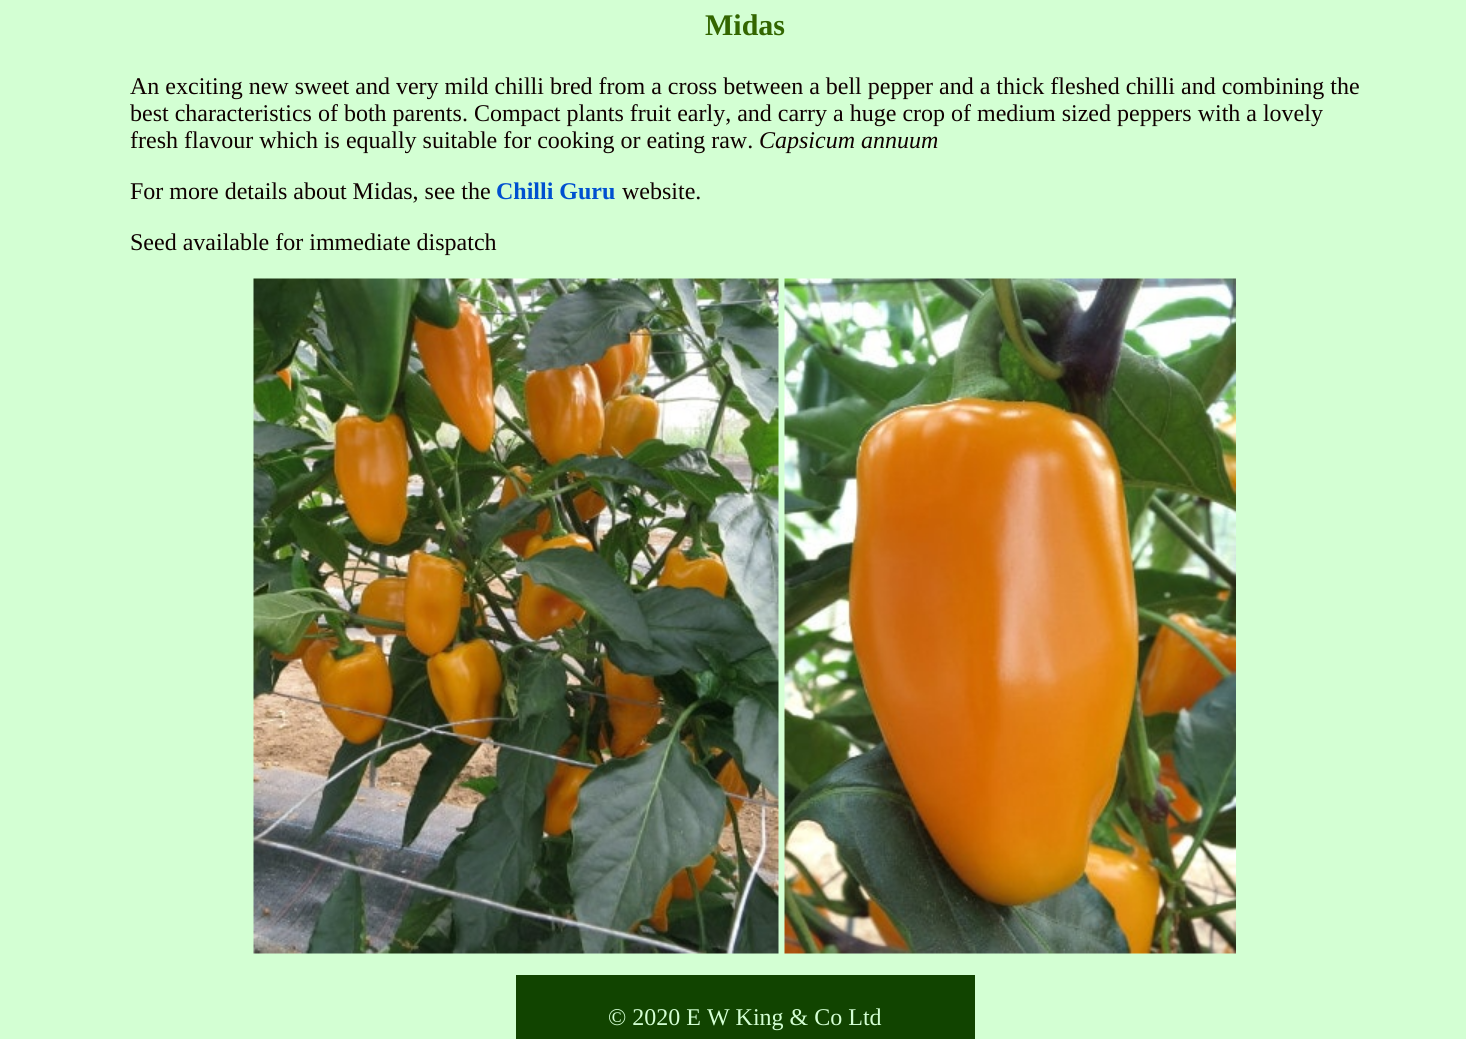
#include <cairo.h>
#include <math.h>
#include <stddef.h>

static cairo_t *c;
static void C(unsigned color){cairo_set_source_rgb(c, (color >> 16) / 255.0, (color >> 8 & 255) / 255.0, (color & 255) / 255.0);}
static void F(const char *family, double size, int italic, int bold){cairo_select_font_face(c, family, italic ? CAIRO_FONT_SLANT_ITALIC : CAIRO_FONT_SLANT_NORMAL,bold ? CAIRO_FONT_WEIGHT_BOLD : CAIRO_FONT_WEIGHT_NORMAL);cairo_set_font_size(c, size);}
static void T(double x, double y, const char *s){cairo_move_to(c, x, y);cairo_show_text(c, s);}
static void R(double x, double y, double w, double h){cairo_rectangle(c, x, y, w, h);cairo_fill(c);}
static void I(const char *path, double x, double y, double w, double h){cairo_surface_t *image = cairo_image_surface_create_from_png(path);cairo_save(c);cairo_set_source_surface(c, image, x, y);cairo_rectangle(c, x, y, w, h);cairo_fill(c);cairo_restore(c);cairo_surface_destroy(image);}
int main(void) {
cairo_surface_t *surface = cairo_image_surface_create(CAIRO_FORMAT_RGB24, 1466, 1039);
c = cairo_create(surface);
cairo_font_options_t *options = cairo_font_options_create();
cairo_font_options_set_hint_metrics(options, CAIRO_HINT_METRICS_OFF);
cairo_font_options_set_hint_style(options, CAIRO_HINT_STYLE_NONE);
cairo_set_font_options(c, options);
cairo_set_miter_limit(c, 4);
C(0xd3ffd3);
cairo_paint(c);
F("Liberation Serif",30,0,1);
C(0x336600);
T(705,35,"Midas");
F("Liberation Serif",24,0,0);
C(0x0f0000);
T(130,94,"An exciting new sweet and very mild chilli bred from a cross between a bell pepper and a thick fleshed chilli and combining the");
T(130,121,"best characteristics of both parents. Compact plants fruit early, and carry a huge crop of medium sized peppers with a lovely");
T(130,148,"fresh flavour which is equally suitable for cooking or eating raw.");
F("Liberation Serif",24,1,0);
T(759,148,"Capsicum annuum");
F("Liberation Serif",24,0,0);
T(130,199,"For more details about Midas, see the");
F("Liberation Serif",24,0,1);
C(0x0050d0);
T(496,199,"Chilli Guru");
F("Liberation Serif",24,0,0);
C(0x0f0000);
T(622,199,"website.");
T(130,250,"Seed available for immediate dispatch");
I("1.png",253,278,526,676);
I("2.png",784,278,452,676);
C(0x114400);
R(516,975,459,64);
C(0xd3ffd3);
T(608,1025,"© 2020 E W King & Co Ltd");
cairo_surface_write_to_png(surface, "o.png");
cairo_font_options_destroy(options);
cairo_destroy(c);
cairo_surface_destroy(surface);
return 0;
}
